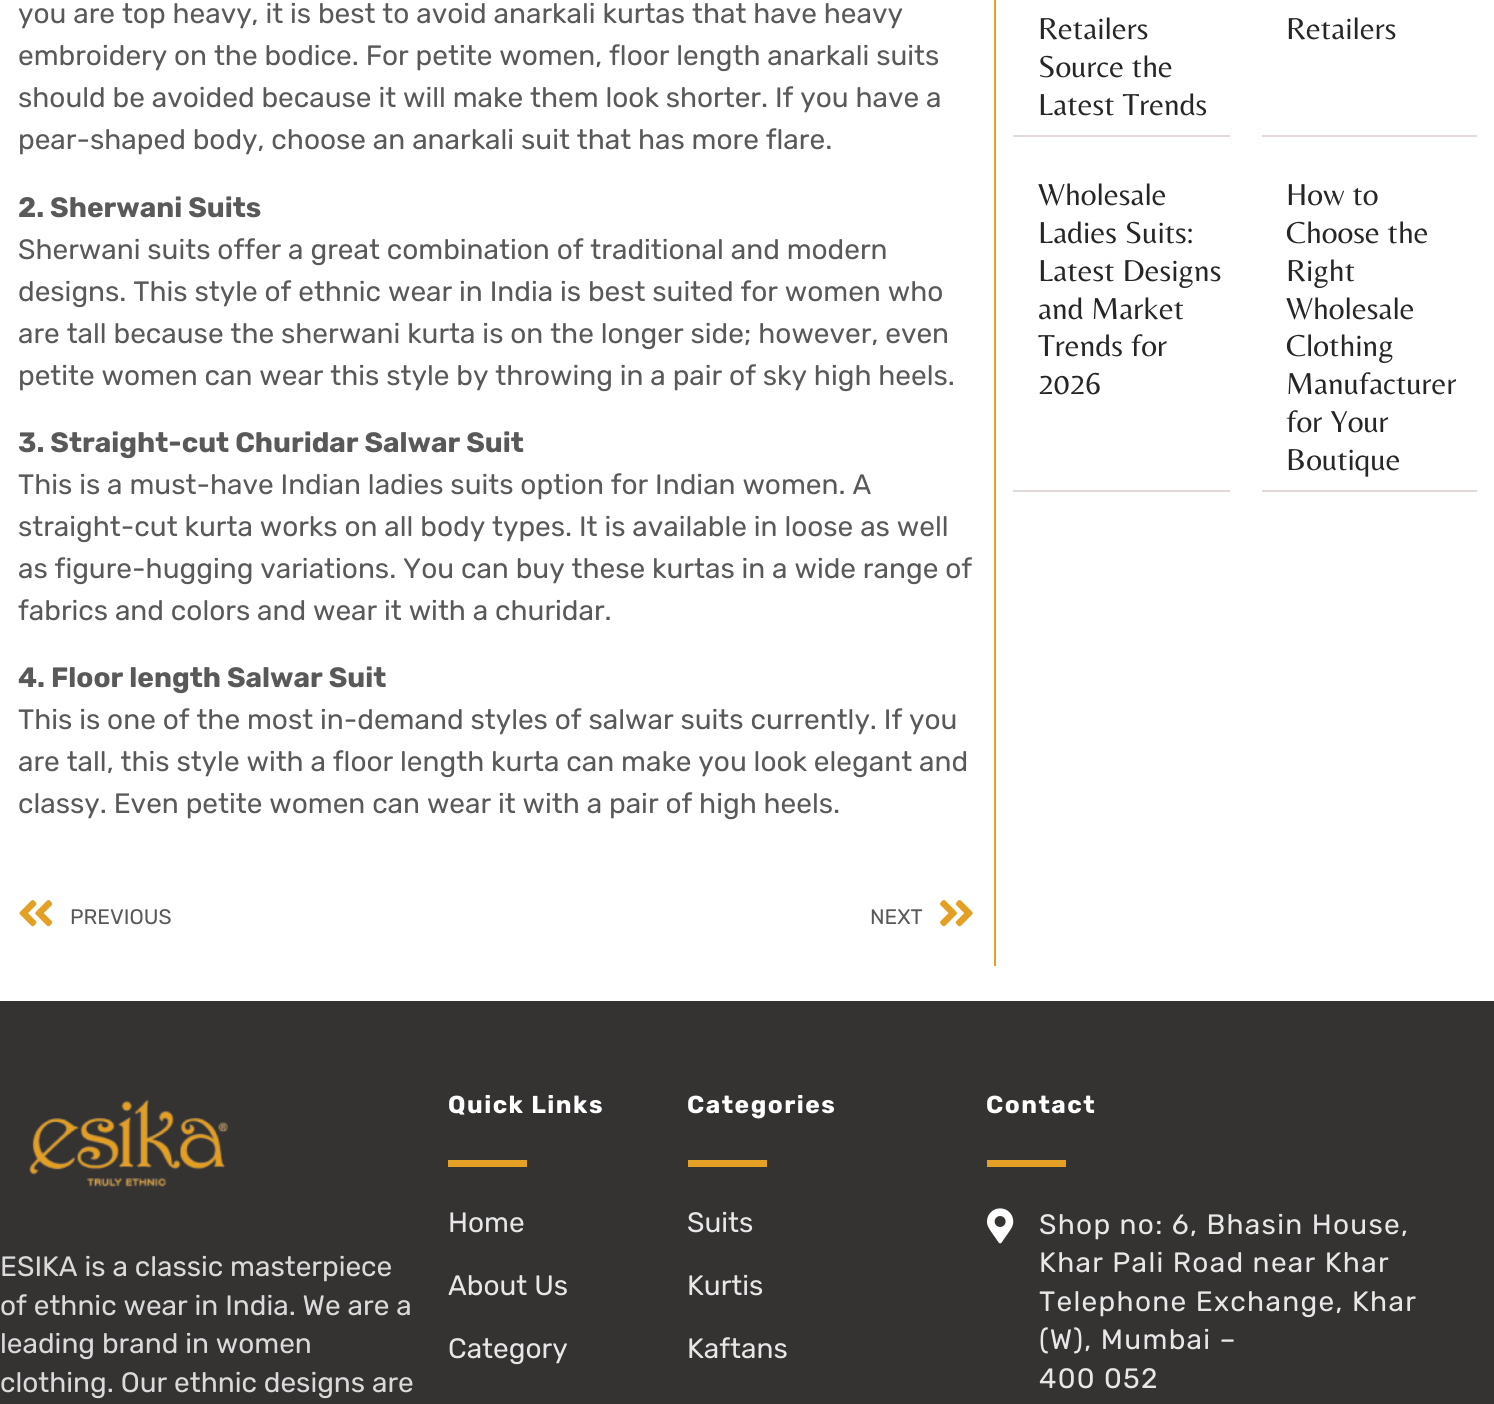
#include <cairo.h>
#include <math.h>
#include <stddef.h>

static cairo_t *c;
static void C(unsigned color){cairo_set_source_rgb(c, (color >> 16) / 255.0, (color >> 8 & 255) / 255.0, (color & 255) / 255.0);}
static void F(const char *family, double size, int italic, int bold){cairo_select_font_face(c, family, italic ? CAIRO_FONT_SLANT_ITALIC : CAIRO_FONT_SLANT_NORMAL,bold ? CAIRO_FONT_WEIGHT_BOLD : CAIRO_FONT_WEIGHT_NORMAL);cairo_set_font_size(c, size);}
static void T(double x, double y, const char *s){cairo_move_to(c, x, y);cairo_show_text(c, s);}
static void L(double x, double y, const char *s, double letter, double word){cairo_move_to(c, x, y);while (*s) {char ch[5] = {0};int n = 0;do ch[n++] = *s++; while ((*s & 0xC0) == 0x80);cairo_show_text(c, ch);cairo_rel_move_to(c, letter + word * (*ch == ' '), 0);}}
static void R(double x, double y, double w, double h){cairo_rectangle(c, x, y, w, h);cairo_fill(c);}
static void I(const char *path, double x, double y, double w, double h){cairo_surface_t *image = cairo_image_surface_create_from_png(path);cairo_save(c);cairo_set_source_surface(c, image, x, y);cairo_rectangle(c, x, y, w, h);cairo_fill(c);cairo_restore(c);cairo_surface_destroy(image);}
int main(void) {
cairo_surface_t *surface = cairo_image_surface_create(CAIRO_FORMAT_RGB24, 1494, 1404);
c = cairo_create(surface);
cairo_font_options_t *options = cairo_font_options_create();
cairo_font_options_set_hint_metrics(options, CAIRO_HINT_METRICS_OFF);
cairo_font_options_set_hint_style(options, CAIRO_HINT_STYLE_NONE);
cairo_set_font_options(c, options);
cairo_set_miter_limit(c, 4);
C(0xffffff);
cairo_paint(c);
C(0xe4a024);
R(994,0,2,966);
F("Rubik",28,0,0);
C(0x595959);
T(18,23,"you are top heavy, it is best to avoid anarkali kurtas that have heavy");
T(18,65,"embroidery on the bodice. For petite women, floor length anarkali suits");
T(18,107,"should be avoided because it will make them look shorter. If you have a");
T(18,149,"pear-shaped body, choose an anarkali suit that has more flare.");
F("Rubik",28,0,1);
T(18,217,"2. Sherwani Suits");
F("Rubik",28,0,0);
T(18,259,"Sherwani suits offer a great combination of traditional and modern");
T(18,301,"designs. This style of ethnic wear in India is best suited for women who");
T(18,343,"are tall because the sherwani kurta is on the longer side; however, even");
T(18,385,"petite women can wear this style by throwing in a pair of sky high heels.");
F("Rubik",28,0,1);
T(18,452,"3. Straight-cut Churidar Salwar Suit");
F("Rubik",28,0,0);
T(18,494,"This is a must-have Indian ladies suits option for Indian women. A");
T(18,536,"straight-cut kurta works on all body types. It is available in loose as well");
T(18,578,"as figure-hugging variations. You can buy these kurtas in a wide range of");
T(18,620,"fabrics and colors and wear it with a churidar.");
F("Rubik",28,0,1);
T(18,687,"4. Floor length Salwar Suit");
F("Rubik",28,0,0);
T(18,729,"This is one of the most in-demand styles of salwar suits currently. If you");
T(18,771,"are tall, this style with a floor length kurta can make you look elegant and");
T(18,813,"classy. Even petite women can wear it with a pair of high heels.");
I("1.png",19,900,34,27);
F("Rubik",21,0,0);
T(70,924,"PREVIOUS");
T(870,924,"NEXT");
I("2.png",940,900,33,27);
C(0xe2d9d9);
R(1013,135,217,2);
F("Belleza",31.5,0,0);
C(0x262626);
T(1038,39,"Retailers");
T(1038,77,"Source the");
T(1038,115,"Latest Trends");
C(0xe2d9d9);
R(1262,135,215,2);
C(0x262626);
T(1286,39,"Retailers");
C(0xe2d9d9);
R(1013,490,217,2);
C(0x262626);
T(1038,205,"Wholesale");
T(1038,243,"Ladies Suits:");
T(1038,281,"Latest Designs");
T(1038,319,"and Market");
T(1038,356,"Trends for");
T(1038,394,"2026");
C(0xe2d9d9);
R(1262,490,215,2);
C(0x262626);
T(1286,205,"How to");
T(1286,243,"Choose the");
T(1286,281,"Right");
T(1286,319,"Wholesale");
T(1286,356,"Clothing");
T(1286,394,"Manufacturer");
T(1286,432,"for Your");
T(1286,470,"Boutique");
C(0x353232);
R(0,1001,1494,403);
I("3.png",29,1099,199,88);
F("Rubik",28,0,0);
C(0xdadada);
T(0,1276,"ESIKA is a classic masterpiece");
T(0,1315,"of ethnic wear in India. We are a");
T(0,1353,"leading brand in women");
T(0,1392,"clothing. Our ethnic designs are");
F("Rubik",24.5,0,1);
C(0xffffff);
L(448,1113,"Quick Links",1.5,0);
C(0xe4a024);
R(448,1160,79,7);
F("Rubik",28,0,0);
C(0xe7e7e7);
T(448,1232,"Home");
T(448,1295,"About Us");
T(448,1358,"Category");
F("Rubik",24.5,0,1);
C(0xffffff);
L(687,1113,"Categories",1.5,0);
C(0xe4a024);
R(688,1160,79,7);
F("Rubik",28,0,0);
C(0xe7e7e7);
T(687,1232,"Suits");
T(687,1295,"Kurtis");
T(687,1358,"Kaftans");
F("Rubik",24.5,0,1);
C(0xffffff);
L(986,1113,"Contact",1.5,0);
C(0xe4a024);
R(987,1160,79,7);
I("4.png",987,1208,27,36);
F("Rubik",28,0,0);
C(0xe7e7e7);
L(1039,1234,"Shop no: 6, Bhasin House,",1.3,0);
L(1039,1272,"Khar Pali Road near Khar",1.3,0);
L(1039,1311,"Telephone Exchange, Khar",1.3,0);
L(1039,1349,"(W), Mumbai –",1.3,0);
L(1039,1388,"400 052",1.3,0);
cairo_surface_write_to_png(surface, "o.png");
cairo_font_options_destroy(options);
cairo_destroy(c);
cairo_surface_destroy(surface);
return 0;
}
